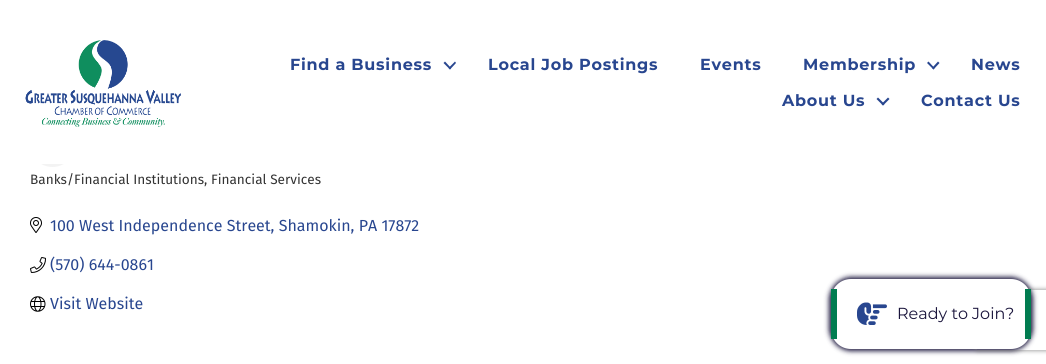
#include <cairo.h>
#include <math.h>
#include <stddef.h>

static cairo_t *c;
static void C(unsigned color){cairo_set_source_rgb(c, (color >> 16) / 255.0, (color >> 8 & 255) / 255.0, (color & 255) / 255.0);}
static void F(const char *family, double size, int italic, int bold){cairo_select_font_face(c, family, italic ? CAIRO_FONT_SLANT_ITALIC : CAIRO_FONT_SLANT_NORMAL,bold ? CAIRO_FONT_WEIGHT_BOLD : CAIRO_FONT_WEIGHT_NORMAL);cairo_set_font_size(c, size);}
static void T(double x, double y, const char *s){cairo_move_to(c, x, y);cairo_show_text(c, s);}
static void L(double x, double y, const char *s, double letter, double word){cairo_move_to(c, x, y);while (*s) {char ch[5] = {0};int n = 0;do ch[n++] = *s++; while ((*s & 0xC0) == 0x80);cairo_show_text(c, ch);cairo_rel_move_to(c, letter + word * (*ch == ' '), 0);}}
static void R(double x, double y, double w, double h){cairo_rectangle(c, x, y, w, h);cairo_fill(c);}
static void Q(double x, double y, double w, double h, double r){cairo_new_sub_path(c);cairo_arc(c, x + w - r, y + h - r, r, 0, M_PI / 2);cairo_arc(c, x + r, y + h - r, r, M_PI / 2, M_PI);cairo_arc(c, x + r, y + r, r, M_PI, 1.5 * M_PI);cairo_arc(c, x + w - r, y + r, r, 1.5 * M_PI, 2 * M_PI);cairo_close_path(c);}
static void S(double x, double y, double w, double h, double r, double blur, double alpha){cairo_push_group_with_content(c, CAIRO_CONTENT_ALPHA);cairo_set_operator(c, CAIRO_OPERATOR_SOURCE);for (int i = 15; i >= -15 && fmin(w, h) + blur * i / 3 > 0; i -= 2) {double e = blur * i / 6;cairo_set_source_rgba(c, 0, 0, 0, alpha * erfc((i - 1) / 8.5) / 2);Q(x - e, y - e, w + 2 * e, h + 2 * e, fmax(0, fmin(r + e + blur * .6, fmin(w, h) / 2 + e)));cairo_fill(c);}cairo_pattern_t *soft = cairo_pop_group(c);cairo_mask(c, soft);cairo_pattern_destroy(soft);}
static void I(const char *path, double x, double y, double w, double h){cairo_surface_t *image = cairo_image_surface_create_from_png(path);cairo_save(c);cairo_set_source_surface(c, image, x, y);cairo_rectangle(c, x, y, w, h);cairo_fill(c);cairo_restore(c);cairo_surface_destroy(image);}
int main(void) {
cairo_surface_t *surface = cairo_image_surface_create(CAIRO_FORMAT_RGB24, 1046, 364);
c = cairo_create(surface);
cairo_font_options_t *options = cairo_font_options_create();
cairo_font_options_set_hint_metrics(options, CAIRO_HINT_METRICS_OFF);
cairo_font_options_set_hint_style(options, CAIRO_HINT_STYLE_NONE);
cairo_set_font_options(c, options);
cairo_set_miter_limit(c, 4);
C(0xffffff);
cairo_paint(c);
C(0xf3f3f3);
cairo_arc(c,52.5,144.5,22.5,0,2 * M_PI);
cairo_fill(c);
C(0xffffff);
R(30,122,45,42);
I("1.png",25,40,156,87);
F("Montserrat",16,0,1);
C(0x28468f);
L(290,70,"Find a Business",.75,0);
cairo_new_path(c);
cairo_move_to(c,455,61.5);
cairo_line_to(c,456,63);
cairo_line_to(c,450,69.5);
cairo_line_to(c,448.5,68);
cairo_close_path(c);
cairo_fill(c);
cairo_new_path(c);
cairo_move_to(c,445,61.5);
cairo_line_to(c,451,68);
cairo_line_to(c,450,69.5);
cairo_line_to(c,443.5,63);
cairo_close_path(c);
cairo_fill(c);
L(488,70,"Local Job Postings",.75,0);
L(700,70,"Events",.75,0);
L(803,70,"Membership",.75,0);
cairo_new_path(c);
cairo_move_to(c,938,61.5);
cairo_line_to(c,939.5,63);
cairo_line_to(c,933.5,69.5);
cairo_line_to(c,932,68);
cairo_close_path(c);
cairo_fill(c);
cairo_new_path(c);
cairo_move_to(c,928.5,61.5);
cairo_line_to(c,934.5,68);
cairo_line_to(c,933.5,69.5);
cairo_line_to(c,927,63);
cairo_close_path(c);
cairo_move_to(c,888,97.5);
cairo_line_to(c,889.5,99);
cairo_line_to(c,883,105.5);
cairo_line_to(c,881.5,104);
cairo_close_path(c);
cairo_fill(c);
L(971,70,"News",.75,0);
L(782,106,"About Us",.75,0);
cairo_new_path(c);
cairo_move_to(c,878,97.5);
cairo_line_to(c,884.5,104);
cairo_line_to(c,883,105.5);
cairo_line_to(c,876.5,99);
cairo_close_path(c);
cairo_fill(c);
L(921,106,"Contact Us",.75,0);
F("Fira Sans",13.6,0,0);
C(0x333333);
T(30,184,"Banks/Financial Institutions, Financial Services");
I("2.png",30,217,12,16);
F("Fira Sans",16,0,0);
C(0x28468f);
T(50,231,"100 West Independence Street, Shamokin, PA 17872");
I("3.png",30,257,16,16);
T(50,270,"(570) 644-0861");
I("4.png",30,296,16,16);
T(50,309,"Visit Website");
C(0x1a153c);
S(829,277,204,74,22,2.5,1);
cairo_save(c);
cairo_set_fill_rule(c,CAIRO_FILL_RULE_EVEN_ODD);
cairo_new_path(c);
cairo_move_to(c,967,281);
cairo_line_to(c,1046,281);
cairo_line_to(c,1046,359);
cairo_line_to(c,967,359);
cairo_close_path(c);
cairo_move_to(c,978,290);
cairo_line_to(c,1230,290);
cairo_curve_to(c,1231,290,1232,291,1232,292);
cairo_line_to(c,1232,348);
cairo_curve_to(c,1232,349,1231,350,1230,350);
cairo_line_to(c,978,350);
cairo_curve_to(c,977,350,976,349,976,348);
cairo_line_to(c,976,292);
cairo_curve_to(c,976,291,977,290,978,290);
cairo_close_path(c);
cairo_clip(c);
C(0x808080);
S(976,290,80,60,2,2.5,1);
cairo_restore(c);
C(0xffffff);
Q(831,279,200,70,20);
cairo_fill(c);
C(0x017c50);
R(1025,289,6,50);
R(831,289,6,50);
I("5.png",857,302,30,23);
F("Montserrat",16,0,0);
C(0x1a153c);
T(897,319,"Ready to Join?");
cairo_surface_write_to_png(surface, "o.png");
cairo_font_options_destroy(options);
cairo_destroy(c);
cairo_surface_destroy(surface);
return 0;
}
